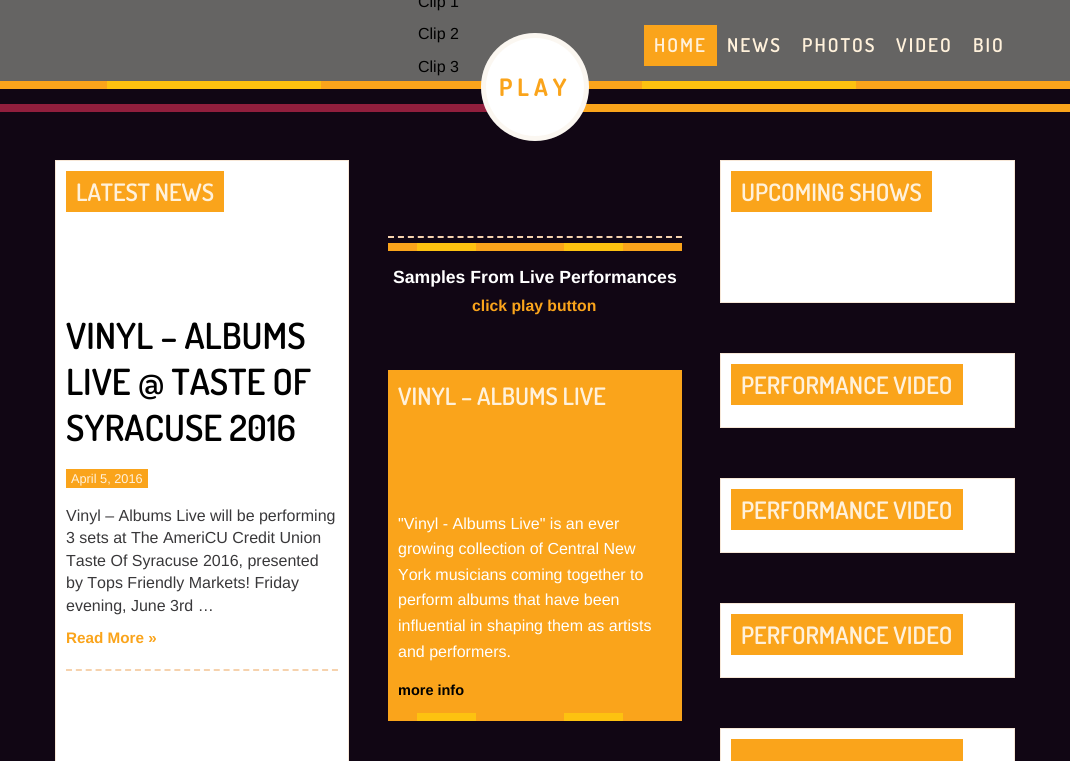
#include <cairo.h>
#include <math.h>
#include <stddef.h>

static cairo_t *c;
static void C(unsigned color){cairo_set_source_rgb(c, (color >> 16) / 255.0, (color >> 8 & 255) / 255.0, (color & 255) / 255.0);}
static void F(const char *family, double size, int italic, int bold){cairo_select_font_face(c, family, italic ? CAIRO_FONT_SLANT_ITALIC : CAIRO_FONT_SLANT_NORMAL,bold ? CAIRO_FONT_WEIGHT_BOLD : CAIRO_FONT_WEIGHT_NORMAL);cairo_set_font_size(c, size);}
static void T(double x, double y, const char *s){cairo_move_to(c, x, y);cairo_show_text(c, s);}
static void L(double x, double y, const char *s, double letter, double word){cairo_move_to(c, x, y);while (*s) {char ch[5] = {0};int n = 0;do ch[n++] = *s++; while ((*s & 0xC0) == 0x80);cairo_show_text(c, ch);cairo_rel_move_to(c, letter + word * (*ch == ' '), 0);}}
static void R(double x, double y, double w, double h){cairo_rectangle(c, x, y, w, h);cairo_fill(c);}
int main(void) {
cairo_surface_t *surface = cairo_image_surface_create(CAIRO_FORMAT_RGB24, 1070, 761);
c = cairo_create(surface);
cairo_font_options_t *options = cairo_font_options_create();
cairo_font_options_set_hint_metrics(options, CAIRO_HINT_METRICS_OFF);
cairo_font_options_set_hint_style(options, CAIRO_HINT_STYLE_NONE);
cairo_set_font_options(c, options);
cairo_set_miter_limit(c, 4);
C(0x110614);
cairo_paint(c);
C(0xffffff);
cairo_rectangle(c,55.5,160.5,293,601);
cairo_fill_preserve(c);
C(0xf7e7d7);
cairo_set_line_width(c,1);
cairo_stroke(c);
C(0xfaa41b);
R(66,171,158,41);
F("Dosis SemiBold",24,0,0);
C(0xfff1db);
T(76,201,"LATEST NEWS");
cairo_new_path(c);
cairo_move_to(c,66,670);
cairo_line_to(c,338,670);
C(0xf6d2ad);
cairo_set_line_width(c,2);
cairo_set_dash(c,(double[]){6,3.85},2,0);
cairo_stroke(c);
F("Dosis SemiBold",36,0,0);
C(0x000000);
T(66,349,"VINYL – ALBUMS");
T(66,395,"LIVE @ TASTE OF");
T(66,441,"SYRACUSE 2016");
C(0xfaa41b);
R(66,469,82,19);
F("Liberation Sans",12.75,0,0);
C(0xfff1db);
T(71,483,"April 5, 2016");
F("Liberation Sans",16,0,0);
C(0x39383a);
T(66,521,"Vinyl – Albums Live will be performing");
T(66,543,"3 sets at The AmeriCU Credit Union");
T(66,566,"Taste Of Syracuse 2016, presented");
T(66,588,"by Tops Friendly Markets! Friday");
T(66,611,"evening, June 3rd …");
F("Liberation Sans",15.25,0,1);
C(0xfaa41b);
T(66,643,"Read More »");
C(0x656463);
R(0,0,1070,81);
F("Liberation Sans",16,0,0);
C(0x000000);
T(418,7,"Clip 1");
T(418,39,"Clip 2");
T(418,72,"Clip 3");
C(0xfaa41b);
R(0,81,1070,8);
R(582,104,488,8);
C(0x911e3d);
R(0,104,488,8);
C(0xffffff);
cairo_new_path(c);
cairo_arc(c,535,87,54,0,2 * M_PI);
cairo_fill(c);
cairo_arc(c,535,87,51.5,0,2 * M_PI);
cairo_set_source_rgba(c,0.918,0.855,0.729,0.2);
cairo_set_line_width(c,5);
cairo_set_dash(c,NULL,0,0);
cairo_stroke(c);
F("Dosis",24,0,1);
C(0xfaa41b);
L(499,96,"PLAY",5,0);
R(388,243,294,8);
C(0xfdc210);
R(417,243,59,8);
R(564,243,59,8);
cairo_new_path(c);
cairo_move_to(c,388,237);
cairo_line_to(c,682,237);
C(0xf6d2ad);
cairo_set_line_width(c,2);
cairo_set_dash(c,(double[]){6,3.93},2,0);
cairo_stroke(c);
F("Liberation Sans",17.6,0,1);
C(0xffffff);
T(393,283,"Samples From Live Performances");
F("Liberation Sans",15.75,0,1);
C(0xfaa41b);
T(472,311,"click play button");
R(388,370,294,351);
F("Dosis SemiBold",24,0,0);
C(0xfff1db);
T(398,405,"VINYL – ALBUMS LIVE");
F("Liberation Sans",16,0,0);
C(0xffffff);
T(398,529,"\"Vinyl - Albums Live\" is an ever");
T(398,554,"growing collection of Central New");
T(398,580,"York musicians coming together to");
T(398,605,"perform albums that have been");
T(398,631,"influential in shaping them as artists");
T(398,657,"and performers.");
F("Liberation Sans",14.5,0,1);
C(0x000000);
T(398,695,"more info");
C(0xfdc210);
R(417,713,59,8);
R(564,713,59,8);
C(0xffffff);
cairo_rectangle(c,720.5,160.5,294,142);
cairo_fill_preserve(c);
C(0xf7e7d7);
cairo_set_line_width(c,1);
cairo_set_dash(c,NULL,0,0);
cairo_stroke(c);
C(0xfaa41b);
R(731,171,201,41);
F("Dosis SemiBold",24,0,0);
C(0xfff1db);
T(741,201,"UPCOMING SHOWS");
C(0xffffff);
cairo_rectangle(c,720.5,353.5,294,74);
cairo_fill_preserve(c);
C(0xf7e7d7);
cairo_stroke(c);
C(0xfaa41b);
R(731,364,232,41);
C(0xfff1db);
T(741,394,"PERFORMANCE VIDEO");
C(0xffffff);
cairo_rectangle(c,720.5,478.5,294,74);
cairo_fill_preserve(c);
C(0xf7e7d7);
cairo_stroke(c);
C(0xfaa41b);
R(731,489,232,41);
C(0xfff1db);
T(741,519,"PERFORMANCE VIDEO");
C(0xffffff);
cairo_rectangle(c,720.5,603.5,294,74);
cairo_fill_preserve(c);
C(0xf7e7d7);
cairo_stroke(c);
C(0xfaa41b);
R(731,614,232,41);
C(0xfff1db);
T(741,644,"PERFORMANCE VIDEO");
C(0xffffff);
cairo_rectangle(c,720.5,728.5,294,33);
cairo_fill_preserve(c);
C(0xf7e7d7);
cairo_stroke(c);
C(0xfaa41b);
R(731,739,232,22);
R(644,25,73,41);
F("Dosis SemiBold",19,0,0);
C(0xfff1db);
L(654,52,"HOME",2,0);
L(727,52,"NEWS",2,0);
L(802,52,"PHOTOS",2,0);
L(896,52,"VIDEO",2,0);
L(973,52,"BIO",2,0);
C(0xfdc210);
R(107,81,214,8);
R(642,81,214,8);
cairo_surface_write_to_png(surface, "o.png");
cairo_font_options_destroy(options);
cairo_destroy(c);
cairo_surface_destroy(surface);
return 0;
}
